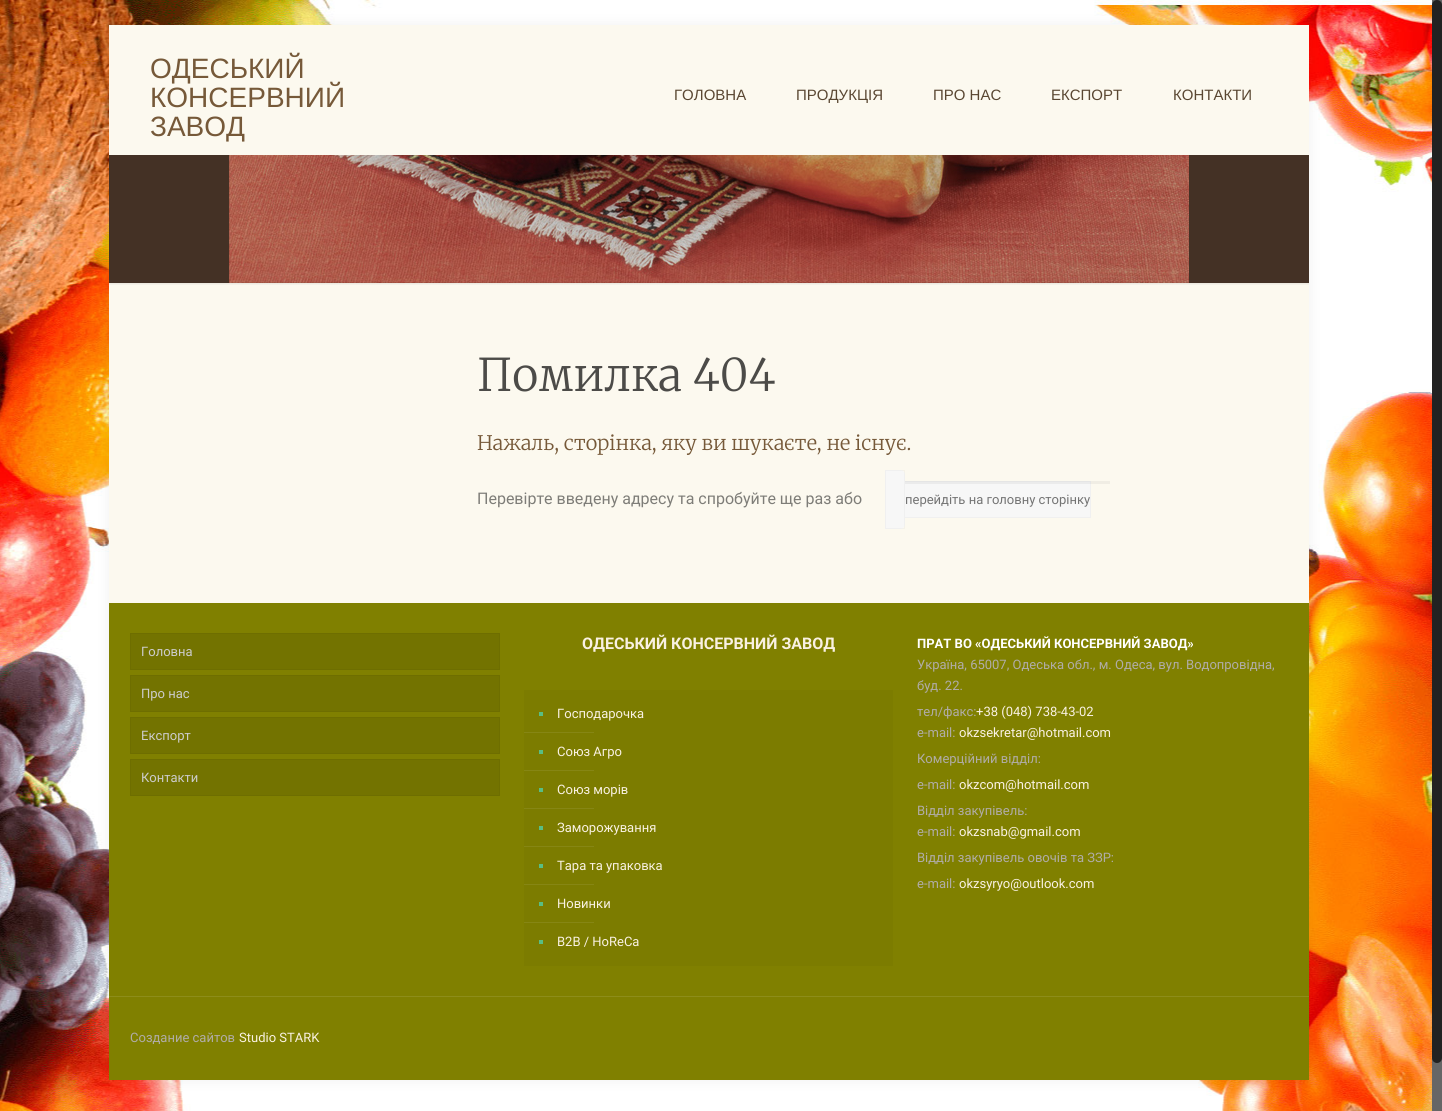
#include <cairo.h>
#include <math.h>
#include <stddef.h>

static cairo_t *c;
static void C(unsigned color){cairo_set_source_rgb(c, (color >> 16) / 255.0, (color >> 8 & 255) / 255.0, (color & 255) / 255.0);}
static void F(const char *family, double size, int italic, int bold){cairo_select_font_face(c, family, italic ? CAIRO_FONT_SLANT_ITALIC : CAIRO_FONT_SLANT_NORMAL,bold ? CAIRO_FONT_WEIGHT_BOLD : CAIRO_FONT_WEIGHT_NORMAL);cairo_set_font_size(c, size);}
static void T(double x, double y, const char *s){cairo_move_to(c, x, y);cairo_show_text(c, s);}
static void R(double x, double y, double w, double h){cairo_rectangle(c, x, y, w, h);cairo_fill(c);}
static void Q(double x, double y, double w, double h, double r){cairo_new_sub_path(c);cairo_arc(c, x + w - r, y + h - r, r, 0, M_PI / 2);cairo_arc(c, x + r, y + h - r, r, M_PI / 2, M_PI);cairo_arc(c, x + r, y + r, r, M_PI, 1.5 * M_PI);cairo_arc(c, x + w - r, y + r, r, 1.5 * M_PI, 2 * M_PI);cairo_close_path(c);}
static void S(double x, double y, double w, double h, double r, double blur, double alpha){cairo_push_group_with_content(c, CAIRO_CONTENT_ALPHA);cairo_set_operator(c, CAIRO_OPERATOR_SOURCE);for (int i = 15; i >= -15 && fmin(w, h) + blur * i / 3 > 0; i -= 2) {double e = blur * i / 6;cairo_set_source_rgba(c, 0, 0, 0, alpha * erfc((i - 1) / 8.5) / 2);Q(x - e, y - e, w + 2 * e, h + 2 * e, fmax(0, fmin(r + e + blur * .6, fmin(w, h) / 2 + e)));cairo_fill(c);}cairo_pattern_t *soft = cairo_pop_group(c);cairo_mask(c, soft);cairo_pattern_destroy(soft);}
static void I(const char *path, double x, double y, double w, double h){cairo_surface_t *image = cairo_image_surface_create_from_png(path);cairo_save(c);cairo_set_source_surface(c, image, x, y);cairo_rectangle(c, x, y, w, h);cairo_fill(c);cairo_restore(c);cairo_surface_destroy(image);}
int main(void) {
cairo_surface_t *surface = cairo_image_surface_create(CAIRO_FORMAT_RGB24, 1442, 1111);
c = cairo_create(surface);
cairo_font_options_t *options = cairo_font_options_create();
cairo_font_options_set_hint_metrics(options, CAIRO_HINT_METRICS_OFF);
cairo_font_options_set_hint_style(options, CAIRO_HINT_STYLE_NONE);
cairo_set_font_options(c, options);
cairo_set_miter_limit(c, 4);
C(0xffffff);
cairo_paint(c);
I("1.png",0,0,1432,1111);
C(0x000000);
S(109,25,1200,1055,0,7.5,.06);
C(0xfcf9ef);
R(109,283,1200,320);
C(0x443125);
R(109,155,1200,128);
I("2.png",229,155,960,128);
C(0xfcf9ef);
R(109,25,1200,130);
F("Liberation Sans",28,0,0);
C(0x765939);
T(150,78,"ОДЕСЬКИЙ");
T(150,107,"КОНСЕРВНИЙ");
T(150,136,"ЗАВОД");
F("Liberation Sans",15,0,0);
C(0x5a4732);
T(674,100,"ГОЛОВНА");
T(796,100,"ПРОДУКЦIЯ");
T(933,100,"ПРО НАС");
T(1051,100,"ЕКСПОРТ");
T(1173,100,"КОНТАКТИ");
I("3.png",109,283,1200,2);
F("Merriweather Light",45,0,0);
C(0x4c4b48);
T(477,391,"Помилка 404");
F("Merriweather Light",20,0,0);
C(0x765939);
T(477,450,"Нажаль, сторінка, яку ви шукаєте, не існує.");
F("Roboto",16,0,0);
C(0x7e7d78);
T(477,504,"Перевірте введену адресу та спробуйте ще раз або");
C(0xf7f7f7);
R(905,481,186,37);
cairo_set_source_rgba(c,0,0,0,0.05);
R(905,481,205,3);
cairo_rectangle(c,885.5,481.5,205,36);
cairo_set_source_rgba(c,0,0,0,0.03);
cairo_set_line_width(c,1);
cairo_stroke(c);
F("Roboto",13,0,0);
C(0x747474);
T(905,504,"перейдіть на головну сторінку");
C(0xf7f7f7);
cairo_new_path(c);
cairo_move_to(c,885,470);
cairo_line_to(c,900,470);
cairo_curve_to(c,903,470,905,472,905,475);
cairo_line_to(c,905,524);
cairo_curve_to(c,905,527,903,529,900,529);
cairo_line_to(c,885,529);
cairo_close_path(c);
cairo_fill(c);
cairo_rectangle(c,885.5,470.5,19,58);
cairo_set_source_rgba(c,0,0,0,0.03);
cairo_stroke(c);
C(0x808000);
R(109,603,1200,477);
C(0x737300);
cairo_rectangle(c,130.5,633.5,369,36);
cairo_fill_preserve(c);
C(0x6e6e00);
cairo_stroke(c);
C(0xcccccc);
T(141,656,"Головна");
C(0x737300);
cairo_rectangle(c,130.5,675.5,369,36);
cairo_fill_preserve(c);
C(0x6e6e00);
cairo_stroke(c);
C(0xcccccc);
T(141,698,"Про нас");
C(0x737300);
cairo_rectangle(c,130.5,717.5,369,36);
cairo_fill_preserve(c);
C(0x6e6e00);
cairo_stroke(c);
C(0xcccccc);
T(141,740,"Експорт");
C(0x737300);
cairo_rectangle(c,130.5,759.5,369,36);
cairo_fill_preserve(c);
C(0x6e6e00);
cairo_stroke(c);
C(0xcccccc);
T(141,782,"Контакти");
F("Roboto",16,0,1);
C(0xf9f1e2);
T(582,649,"ОДЕСЬКИЙ КОНСЕРВНИЙ ЗАВОД");
C(0x7c7c00);
R(524,690,369,276);
C(0x59be84);
R(539,712,4,4);
F("Roboto",13,0,0);
C(0xf9f1e2);
T(557,718,"Господарочка");
C(0x868614);
R(524,732,70,1);
C(0x59be84);
R(539,750,4,4);
C(0xf9f1e2);
T(557,756,"Союз Агро");
C(0x868614);
R(524,770,70,1);
C(0x59be84);
R(539,788,4,4);
C(0xf9f1e2);
T(557,794,"Союз морів");
C(0x868614);
R(524,808,70,1);
C(0x59be84);
R(539,826,4,4);
C(0xf9f1e2);
T(557,832,"Заморожування");
C(0x868614);
R(524,846,70,1);
C(0x59be84);
R(539,864,4,4);
C(0xf9f1e2);
T(557,870,"Тара та упаковка");
C(0x868614);
R(524,884,70,1);
C(0x59be84);
R(539,902,4,4);
C(0xf9f1e2);
T(557,908,"Новинки");
C(0x868614);
R(524,922,70,1);
C(0x59be84);
R(539,940,4,4);
C(0xf9f1e2);
T(557,946,"B2B / HoReCa");
F("Roboto",13,0,1);
C(0xffffff);
T(917,648,"ПРАТ ВО «ОДЕСЬКИЙ КОНСЕРВНИЙ ЗАВОД»");
F("Roboto",13,0,0);
C(0xb0aca7);
T(917,669,"Україна, 65007, Одеська обл., м. Одеса, вул. Водопровідна,");
T(917,690,"буд. 22.");
T(917,716,"тел/факс:");
C(0xf9f1e2);
T(976,716,"+38 (048) 738-43-02");
C(0xb0aca7);
T(917,737,"e-mail:");
C(0xf9f1e2);
T(959,737,"okzsekretar@hotmail.com");
C(0xb0aca7);
T(917,763,"Комерційний відділ:");
T(917,789,"e-mail:");
C(0xf9f1e2);
T(959,789,"okzcom@hotmail.com");
C(0xb0aca7);
T(917,815,"Відділ закупівель:");
T(917,836,"e-mail:");
C(0xf9f1e2);
T(959,836,"okzsnab@gmail.com");
C(0xb0aca7);
T(917,862,"Відділ закупівель овочів та ЗЗР:");
T(917,888,"e-mail:");
C(0xf9f1e2);
T(959,888,"okzsyryo@outlook.com");
C(0x8d8d1a);
R(109,996,1200,1);
C(0xb0aca7);
T(130,1042,"Создание сайтов");
C(0xf9f1e2);
T(239,1042,"Studio STARK");
C(0x666666);
R(1432,0,10,1111);
C(0x222222);
Q(1432,0,10,1063,5);
cairo_fill(c);
cairo_surface_write_to_png(surface, "o.png");
cairo_font_options_destroy(options);
cairo_destroy(c);
cairo_surface_destroy(surface);
return 0;
}
